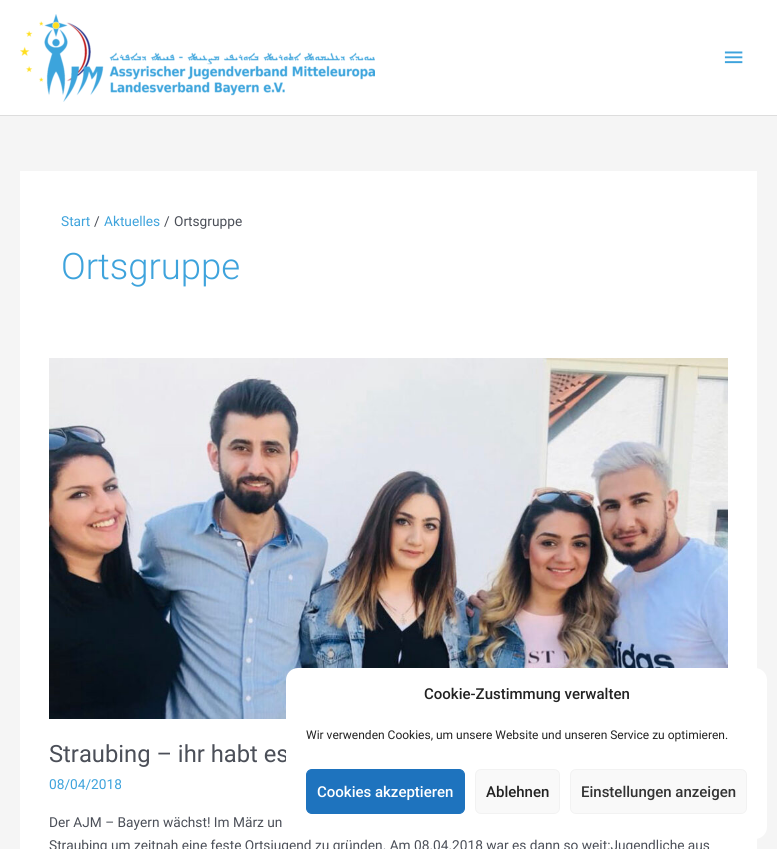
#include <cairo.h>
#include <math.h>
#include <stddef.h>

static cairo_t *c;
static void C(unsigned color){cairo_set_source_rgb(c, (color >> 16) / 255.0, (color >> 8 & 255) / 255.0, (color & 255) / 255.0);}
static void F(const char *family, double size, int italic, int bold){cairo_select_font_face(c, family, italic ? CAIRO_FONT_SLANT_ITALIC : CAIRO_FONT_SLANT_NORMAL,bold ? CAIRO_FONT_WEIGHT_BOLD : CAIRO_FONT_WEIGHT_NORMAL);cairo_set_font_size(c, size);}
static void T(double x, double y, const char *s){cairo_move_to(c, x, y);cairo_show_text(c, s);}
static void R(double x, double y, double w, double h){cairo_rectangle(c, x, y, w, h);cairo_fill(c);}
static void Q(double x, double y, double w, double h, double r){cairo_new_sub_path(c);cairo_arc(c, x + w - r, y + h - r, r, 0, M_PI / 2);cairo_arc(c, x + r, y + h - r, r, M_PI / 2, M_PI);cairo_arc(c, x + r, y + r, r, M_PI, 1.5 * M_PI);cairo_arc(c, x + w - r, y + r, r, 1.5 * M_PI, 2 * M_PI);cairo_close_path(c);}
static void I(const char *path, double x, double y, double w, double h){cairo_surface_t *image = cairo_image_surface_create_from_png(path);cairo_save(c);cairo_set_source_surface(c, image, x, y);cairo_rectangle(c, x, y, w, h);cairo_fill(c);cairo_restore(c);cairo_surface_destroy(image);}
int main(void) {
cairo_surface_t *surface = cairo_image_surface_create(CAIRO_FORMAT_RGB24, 777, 849);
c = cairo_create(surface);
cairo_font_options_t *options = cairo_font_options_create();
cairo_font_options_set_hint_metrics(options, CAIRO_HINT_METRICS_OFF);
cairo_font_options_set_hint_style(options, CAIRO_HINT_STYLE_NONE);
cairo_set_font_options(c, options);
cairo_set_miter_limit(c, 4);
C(0xf5f5f5);
cairo_paint(c);
C(0xffffff);
R(0,0,777,115);
C(0xdddddd);
R(0,115,777,1);
I("1.png",20,14,355,88);
I("2.png",724,51,19,13);
C(0xffffff);
R(20,171,737,678);
F("Roboto",13.7,0,0);
C(0x3ea3dc);
T(61,226,"Start");
C(0x4b4f58);
T(94,226,"/");
C(0x3ea3dc);
T(104,226,"Aktuelles");
C(0x4b4f58);
T(164,226,"/");
T(174,226,"Ortsgruppe");
F("Roboto Light",36.5,0,0);
C(0x3ea3dc);
T(61,279,"Ortsgruppe");
I("3.png",49,358,679,361);
F("Roboto",23.75,0,0);
C(0x4b4f58);
T(49,762,"Straubing – ihr habt es");
F("Roboto",13.7,0,0);
C(0x3ea3dc);
T(49,789,"08/04/2018");
C(0x4b4f58);
T(49,827,"Der AJM – Bayern wächst! Im März un");
T(49,850,"Straubing um zeitnah eine feste Ortsjugend zu gründen. Am 08.04.2018 war es dann so weit:Jugendliche aus");
C(0xffffff);
Q(286,668,481,171,12);
cairo_fill(c);
F("Roboto Medium",15,0,0);
C(0x222222);
T(424,699,"Cookie-Zustimmung verwalten");
F("Roboto",12,0,0);
T(306,739,"Wir verwenden Cookies, um unsere Website und unseren Service zu optimieren.");
C(0x1e73be);
Q(306.5,769.5,158,44,5.5);
cairo_fill_preserve(c);
cairo_set_line_width(c,1);
cairo_stroke(c);
F("Roboto Medium",15,0,0);
C(0xffffff);
T(317,797,"Cookies akzeptieren");
C(0xf9f9f9);
Q(475.5,769.5,84,44,5.5);
cairo_fill_preserve(c);
C(0xf2f2f2);
cairo_stroke(c);
C(0x222222);
T(486,797,"Ablehnen");
C(0xf9f9f9);
Q(570.5,769.5,176,44,5.5);
cairo_fill_preserve(c);
C(0xf2f2f2);
cairo_stroke(c);
C(0x333333);
T(581,797,"Einstellungen anzeigen");
cairo_surface_write_to_png(surface, "o.png");
cairo_font_options_destroy(options);
cairo_destroy(c);
cairo_surface_destroy(surface);
return 0;
}
